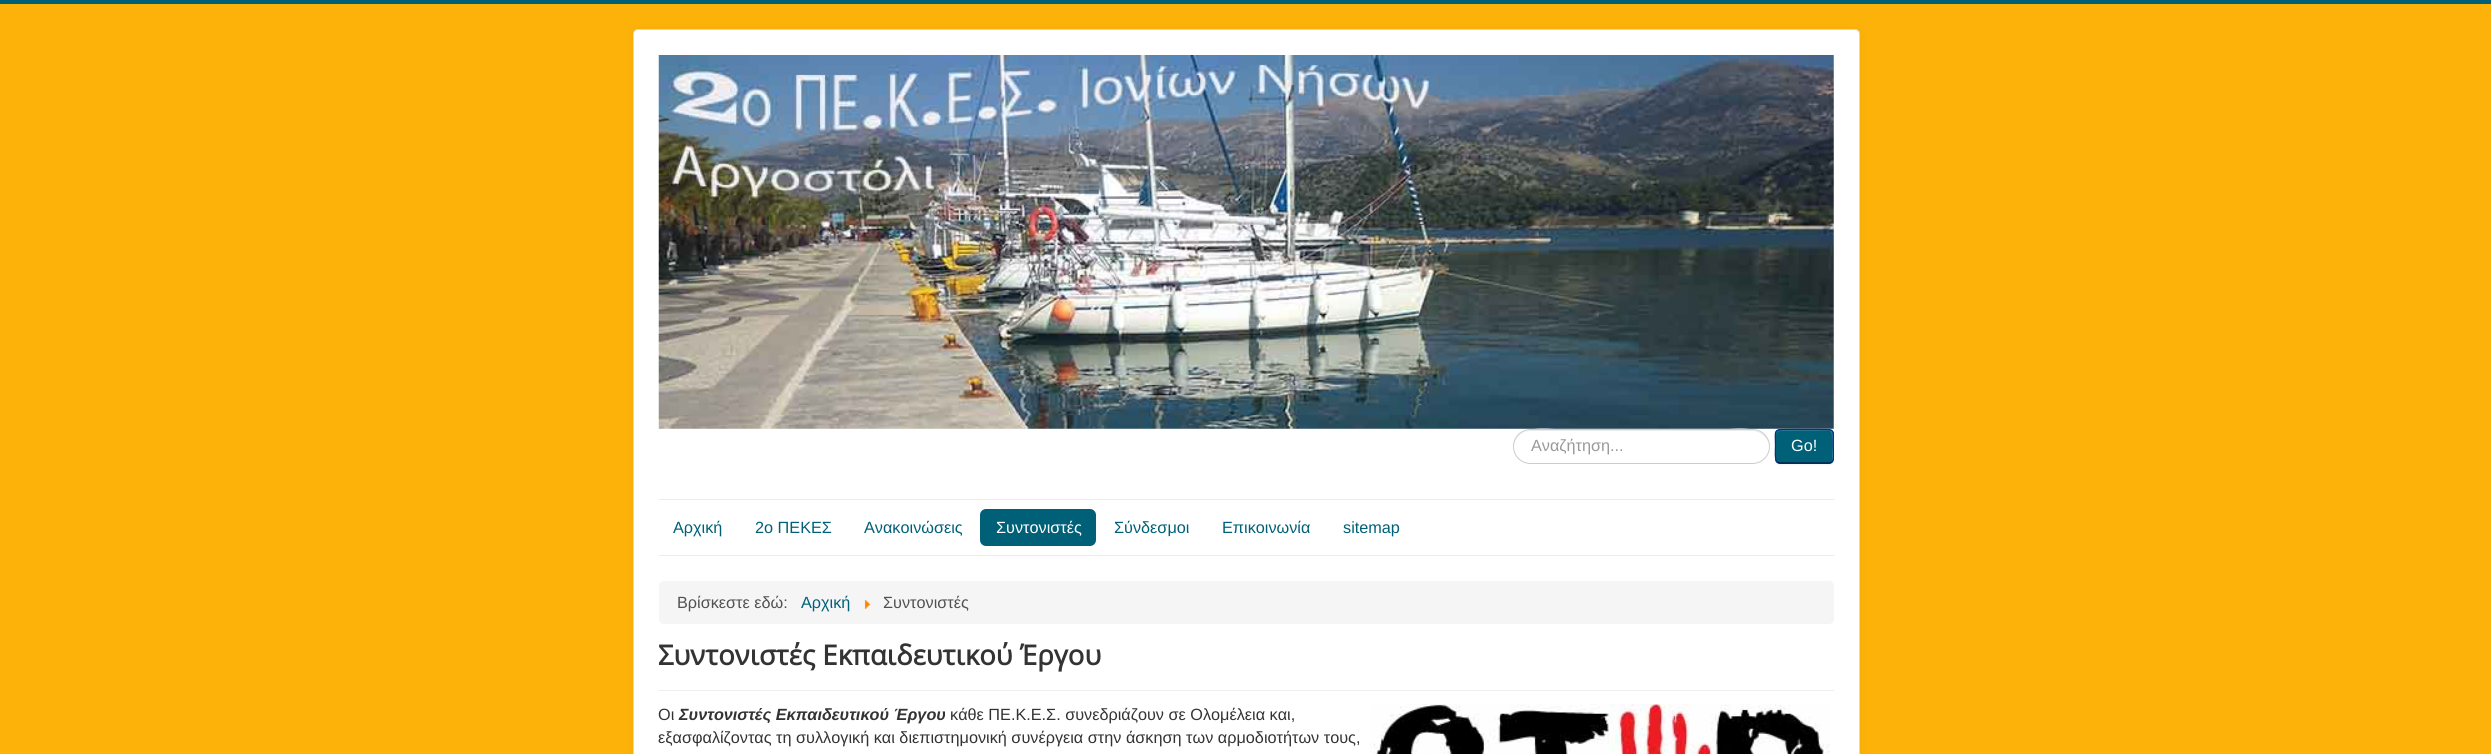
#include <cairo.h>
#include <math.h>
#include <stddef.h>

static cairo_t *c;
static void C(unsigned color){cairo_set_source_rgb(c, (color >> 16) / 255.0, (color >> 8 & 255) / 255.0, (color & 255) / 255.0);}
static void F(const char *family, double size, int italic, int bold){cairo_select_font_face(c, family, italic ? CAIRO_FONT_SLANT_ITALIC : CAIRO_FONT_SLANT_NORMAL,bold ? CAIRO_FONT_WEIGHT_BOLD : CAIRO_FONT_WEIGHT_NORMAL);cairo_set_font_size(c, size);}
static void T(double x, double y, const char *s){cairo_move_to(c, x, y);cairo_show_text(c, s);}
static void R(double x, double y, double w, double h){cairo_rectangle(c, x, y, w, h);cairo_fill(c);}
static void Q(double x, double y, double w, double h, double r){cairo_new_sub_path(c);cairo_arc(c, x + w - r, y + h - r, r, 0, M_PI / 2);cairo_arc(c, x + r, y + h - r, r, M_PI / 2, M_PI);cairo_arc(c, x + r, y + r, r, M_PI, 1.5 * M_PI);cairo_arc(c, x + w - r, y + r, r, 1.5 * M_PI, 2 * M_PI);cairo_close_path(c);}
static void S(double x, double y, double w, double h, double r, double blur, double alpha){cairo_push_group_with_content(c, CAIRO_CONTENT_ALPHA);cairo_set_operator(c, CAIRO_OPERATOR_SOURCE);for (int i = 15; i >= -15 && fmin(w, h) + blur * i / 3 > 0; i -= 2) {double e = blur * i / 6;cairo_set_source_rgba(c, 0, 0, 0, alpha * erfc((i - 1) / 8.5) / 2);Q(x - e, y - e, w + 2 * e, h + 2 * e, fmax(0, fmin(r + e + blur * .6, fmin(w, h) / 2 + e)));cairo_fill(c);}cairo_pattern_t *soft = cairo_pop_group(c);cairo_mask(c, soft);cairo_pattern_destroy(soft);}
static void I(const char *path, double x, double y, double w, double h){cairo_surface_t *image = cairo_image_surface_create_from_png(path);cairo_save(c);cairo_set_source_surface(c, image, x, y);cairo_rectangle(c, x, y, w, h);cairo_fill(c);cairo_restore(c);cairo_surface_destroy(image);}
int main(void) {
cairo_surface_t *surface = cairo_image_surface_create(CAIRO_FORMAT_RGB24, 2491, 754);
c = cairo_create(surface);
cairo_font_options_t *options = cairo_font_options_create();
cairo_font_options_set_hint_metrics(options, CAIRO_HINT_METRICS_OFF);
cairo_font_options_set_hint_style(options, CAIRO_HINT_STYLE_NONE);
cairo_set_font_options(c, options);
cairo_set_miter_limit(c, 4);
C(0xfcb209);
cairo_paint(c);
C(0x006078);
R(0,0,2491,4);
C(0x000000);
S(633,29,1227,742,5,4,.05);
C(0xffffff);
Q(633,29,1227,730,5);
cairo_fill(c);
Q(633.5,29.5,1226,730,4.5);
cairo_set_source_rgba(c,0,0,0,0.15);
cairo_set_line_width(c,1);
cairo_stroke(c);
I("1.png",658,55,1176,374);
C(0xececec);
cairo_new_path(c);
cairo_move_to(c,1530,431);
cairo_line_to(c,1752,431);
cairo_curve_to(c,1761,431,1769,439,1769,447);
cairo_curve_to(c,1770,421,1726,430,1716,430);
cairo_line_to(c,1568,430);
cairo_curve_to(c,1557,430,1513,421,1514,447);
cairo_curve_to(c,1514,439,1521,431,1530,431);
cairo_close_path(c);
cairo_fill(c);
Q(1513.5,429.5,256,34,17);
C(0xcccccc);
cairo_stroke(c);
F("Liberation Sans",16.25,0,0);
C(0x999999);
T(1531,451,"Αναζήτηση...");
C(0x000000);
S(1775,430,59,35,5,1,.05);
C(0x006078);
Q(1775,429,59,35,5);
cairo_fill(c);
C(0x338093);
cairo_new_path(c);
cairo_move_to(c,1780,431);
cairo_line_to(c,1813,431);
cairo_curve_to(c,1832,431,1832,427,1832,443);
cairo_line_to(c,1832,462);
cairo_curve_to(c,1834,460,1833,450,1833,446);
cairo_curve_to(c,1833,426,1835,430,1813,430);
cairo_line_to(c,1788,430);
cairo_curve_to(c,1783,430,1776,428,1776,435);
cairo_curve_to(c,1776,433,1778,431,1780,431);
cairo_close_path(c);
cairo_fill(c);
cairo_new_path(c);
cairo_move_to(c,1832,462);
cairo_curve_to(c,1831,462.5,1830,463,1829,463);
cairo_line_to(c,1780,463);
cairo_curve_to(c,1779,463,1777.5,462.5,1777,462);
C(0x001641);
cairo_set_line_width(c,1.2);
cairo_stroke(c);
cairo_new_path(c);
cairo_move_to(c,1777,462);
cairo_curve_to(c,1774.5,459.5,1775.5,449.5,1775.5,446);
cairo_curve_to(c,1775.5,430,1772.5,429.5,1788,429.5);
cairo_line_to(c,1820.5,429.5);
cairo_curve_to(c,1836.5,429.5,1833,430,1833,446);
cairo_curve_to(c,1833,449.5,1834.5,459.5,1832,462);
C(0x002f8d);
cairo_stroke(c);
C(0xffffff);
T(1791,451,"Go!");
C(0xececec);
R(659,499,1175,1);
R(659,555,1175,1);
C(0x006078);
T(673,533,"Αρχική");
T(755,533,"2ο ΠΕΚΕΣ");
T(864,533,"Ανακοινώσεις");
Q(980,509,116,37,6);
cairo_fill(c);
C(0xffffff);
T(996,533,"Συντονιστές");
C(0x006078);
T(1114,533,"Σύνδεσμοι");
T(1222,533,"Επικοινωνία");
T(1343,533,"sitemap");
C(0xf5f5f5);
Q(659,581,1175,43,5);
cairo_fill(c);
C(0x515151);
T(677,608,"Βρίσκεστε εδώ:");
C(0x006078);
T(801,608,"Αρχική");
I("2.png",864,599,7,10);
C(0x515151);
T(883,608,"Συντονιστές");
C(0xeeeeee);
R(659,690,1175,1);
F("Open Sans",27.5,0,1);
C(0x333333);
T(658,665,"Συντονιστές Εκπαιδευτικού Έργου");
F("Liberation Sans",16.25,0,0);
T(658,720,"Οι");
F("Liberation Sans",16.25,1,1);
T(679,720,"Συντονιστές Εκπαιδευτικού Έργου");
F("Liberation Sans",16.25,0,0);
T(950,720,"κάθε ΠΕ.Κ.Ε.Σ. συνεδριάζουν σε Ολομέλεια και,");
I("3.png",1370,703,460,51);
T(658,743,"εξασφαλίζοντας τη συλλογική και διεπιστημονική συνέργεια στην άσκηση των αρμοδιοτήτων τους,");
cairo_surface_write_to_png(surface, "o.png");
cairo_font_options_destroy(options);
cairo_destroy(c);
cairo_surface_destroy(surface);
return 0;
}
